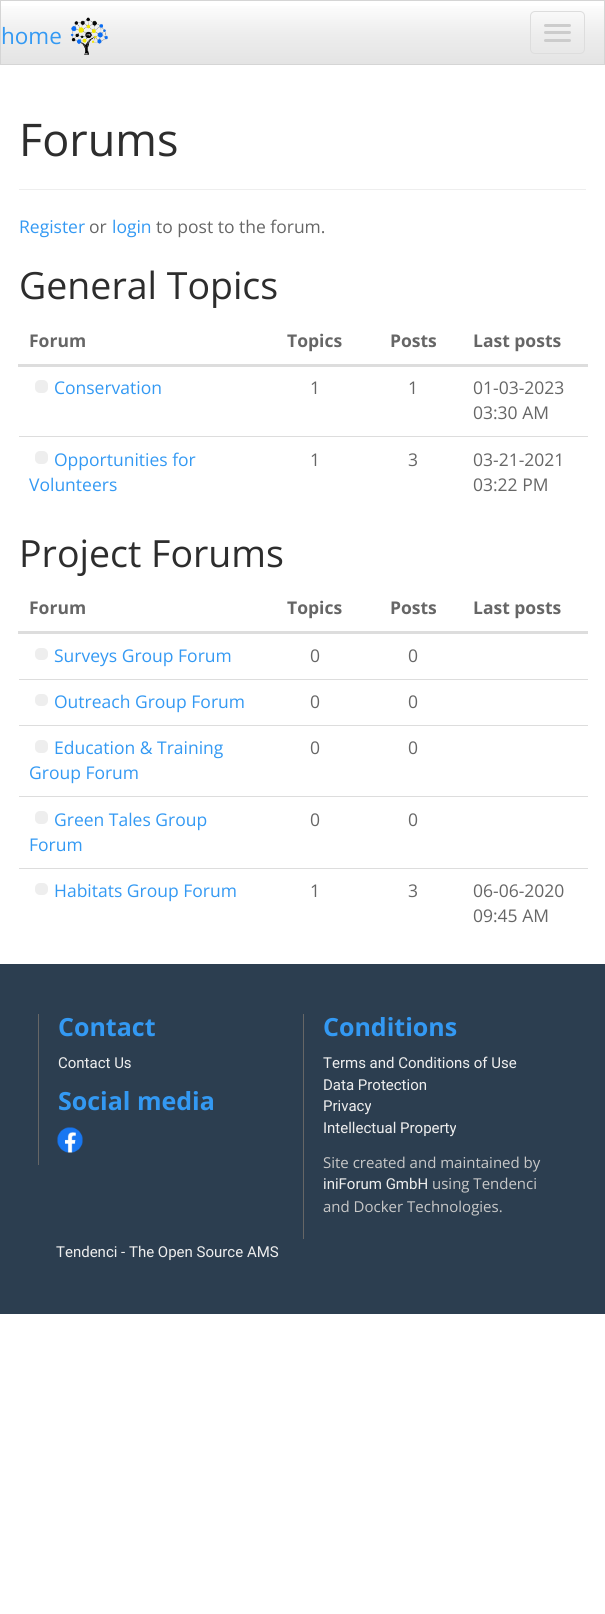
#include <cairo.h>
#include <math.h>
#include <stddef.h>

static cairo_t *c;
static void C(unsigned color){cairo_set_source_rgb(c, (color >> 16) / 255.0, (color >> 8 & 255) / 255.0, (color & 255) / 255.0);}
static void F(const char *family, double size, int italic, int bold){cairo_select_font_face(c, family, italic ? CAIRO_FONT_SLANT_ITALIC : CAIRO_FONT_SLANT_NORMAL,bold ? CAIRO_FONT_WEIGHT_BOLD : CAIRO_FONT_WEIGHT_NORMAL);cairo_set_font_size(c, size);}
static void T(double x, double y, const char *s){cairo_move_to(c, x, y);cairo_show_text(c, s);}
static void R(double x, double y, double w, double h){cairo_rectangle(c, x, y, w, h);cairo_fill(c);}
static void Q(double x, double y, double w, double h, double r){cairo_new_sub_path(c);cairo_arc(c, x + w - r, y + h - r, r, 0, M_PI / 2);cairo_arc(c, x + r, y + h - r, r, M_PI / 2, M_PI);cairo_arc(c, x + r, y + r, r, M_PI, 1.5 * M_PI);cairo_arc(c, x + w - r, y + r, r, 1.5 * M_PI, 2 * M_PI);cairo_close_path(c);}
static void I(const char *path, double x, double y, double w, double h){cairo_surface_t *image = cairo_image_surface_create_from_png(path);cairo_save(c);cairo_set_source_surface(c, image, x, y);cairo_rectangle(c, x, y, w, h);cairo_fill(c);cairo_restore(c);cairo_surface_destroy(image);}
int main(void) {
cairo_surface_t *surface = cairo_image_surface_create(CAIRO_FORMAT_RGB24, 605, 1614);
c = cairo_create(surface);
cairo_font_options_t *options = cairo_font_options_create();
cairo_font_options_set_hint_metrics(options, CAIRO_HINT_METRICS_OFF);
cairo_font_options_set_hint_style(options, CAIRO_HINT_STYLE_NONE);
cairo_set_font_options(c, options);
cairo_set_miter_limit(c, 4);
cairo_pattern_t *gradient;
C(0xffffff);
cairo_paint(c);
gradient = cairo_pattern_create_linear(303,1.2,303,64);
cairo_pattern_add_color_stop_rgba(gradient,0,1,1,1,1);
cairo_pattern_add_color_stop_rgba(gradient,.5,0.933,0.933,0.933,1);
cairo_pattern_add_color_stop_rgba(gradient,1,0.894,0.894,0.894,1);
cairo_set_source(c,gradient);
cairo_pattern_destroy(gradient);
R(1,6,603,58);
cairo_rectangle(c,.5,.5,604,64);
C(0xd5d5d5);
cairo_set_line_width(c,1);
cairo_stroke(c);
F("Open Sans",22.5,0,0);
C(0x3399f3);
T(1,44,"home");
I("1.png",70,17,38,38);
Q(530.5,11.5,54,42,4.5);
C(0xdddddd);
cairo_stroke(c);
C(0xcccccc);
Q(544,24,27,3,1.5);
cairo_fill(c);
Q(544,31,27,3,1.5);
cairo_fill(c);
Q(544,39,27,3,1.5);
cairo_fill(c);
C(0xeeeeee);
R(19,189,567,1);
F("Open Sans",45,0,0);
C(0x2d2d2d);
T(19,156,"Forums");
F("Open Sans",17.5,0,0);
C(0x3399f3);
T(19,233,"Register");
C(0x666666);
T(89,233,"or");
C(0x3399f3);
T(112,233,"login");
C(0x666666);
T(156,233,"to post to the forum.");
F("Open Sans",37.5,0,0);
C(0x2d2d2d);
T(19,299,"General Topics");
F("Open Sans",17.5,0,1);
C(0x666666);
T(29,347,"Forum");
T(287,347,"Topics");
T(390,347,"Posts");
C(0xdddddd);
R(18,364,570,3);
C(0x666666);
T(473,347,"Last posts");
C(0xeeeeee);
Q(35,380,13,13,5);
cairo_fill(c);
F("Open Sans",17.5,0,0);
C(0x3399f3);
T(54,394,"Conservation");
C(0x666666);
T(310,394,"1");
T(408,394,"1");
T(473,394,"01-03-2023");
T(473,419,"03:30 AM");
C(0xeeeeee);
Q(35,451,13,13,5);
cairo_fill(c);
C(0x3399f3);
T(54,466,"Opportunities for");
T(29,491,"Volunteers");
C(0x666666);
T(310,466,"1");
T(408,466,"3");
C(0xdddddd);
R(19,436,569,1);
C(0x666666);
T(473,466,"03-21-2021");
T(473,491,"03:22 PM");
F("Open Sans",37.5,0,0);
C(0x2d2d2d);
T(19,567,"Project Forums");
F("Open Sans",17.5,0,1);
C(0x666666);
T(29,614,"Forum");
T(287,614,"Topics");
T(390,614,"Posts");
C(0xdddddd);
R(18,631,570,3);
C(0x666666);
T(473,614,"Last posts");
C(0xeeeeee);
Q(35,648,13,12,5);
cairo_fill(c);
F("Open Sans",17.5,0,0);
C(0x3399f3);
T(54,662,"Surveys Group Forum");
C(0x666666);
T(310,662,"0");
T(408,662,"0");
C(0xdddddd);
R(19,679,569,1);
C(0xeeeeee);
Q(35,694,13,12,5);
cairo_fill(c);
C(0x3399f3);
T(54,708,"Outreach Group Forum");
C(0x666666);
T(310,708,"0");
T(408,708,"0");
C(0xdddddd);
R(19,725,569,1);
C(0x3399f3);
T(54,754,"Education & Training");
T(29,779,"Group Forum");
C(0xeeeeee);
Q(35,740,13,13,5);
cairo_fill(c);
C(0x666666);
T(310,754,"0");
T(408,754,"0");
C(0xdddddd);
R(19,796,569,1);
C(0xeeeeee);
Q(35,811,13,13,5);
cairo_fill(c);
C(0x3399f3);
T(54,826,"Green Tales Group");
T(29,851,"Forum");
C(0x666666);
T(310,826,"0");
T(408,826,"0");
C(0xeeeeee);
Q(35,883,13,12,5);
cairo_fill(c);
C(0x3399f3);
T(54,897,"Habitats Group Forum");
C(0x666666);
T(310,897,"1");
T(408,897,"3");
C(0xdddddd);
R(19,868,569,1);
C(0x666666);
T(473,897,"06-06-2020");
T(473,922,"09:45 AM");
C(0x2c3e50);
R(0,964,605,350);
C(0x666666);
R(38,1014,1,151);
F("Open Sans",25,0,1);
C(0x3399f3);
T(58,1036,"Contact");
F("Roboto",15,0,0);
C(0xeeeeee);
T(58,1068,"Contact Us");
F("Open Sans",25,0,1);
C(0x3399f3);
T(58,1110,"Social media");
I("2.png",57,1127,26,26);
C(0x666666);
R(303,1014,1,225);
C(0x3399f3);
T(323,1036,"Conditions");
F("Roboto",15,0,0);
C(0xeeeeee);
T(323,1068,"Terms and Conditions of Use");
T(323,1090,"Data Protection");
T(323,1111,"Privacy");
T(323,1133,"Intellectual Property");
F("Open Sans",15,0,0);
C(0xc8c8c8);
T(323,1168,"Site created and maintained by");
F("Roboto",15,0,0);
C(0xeeeeee);
T(323,1189,"iniForum GmbH");
F("Open Sans",15,0,0);
C(0xc8c8c8);
T(432,1189,"using Tendenci");
T(323,1212,"and Docker Technologies.");
F("Roboto",15,0,0);
C(0xeeeeee);
T(56,1257,"Tendenci - The Open Source AMS");
cairo_surface_write_to_png(surface, "o.png");
cairo_font_options_destroy(options);
cairo_destroy(c);
cairo_surface_destroy(surface);
return 0;
}
